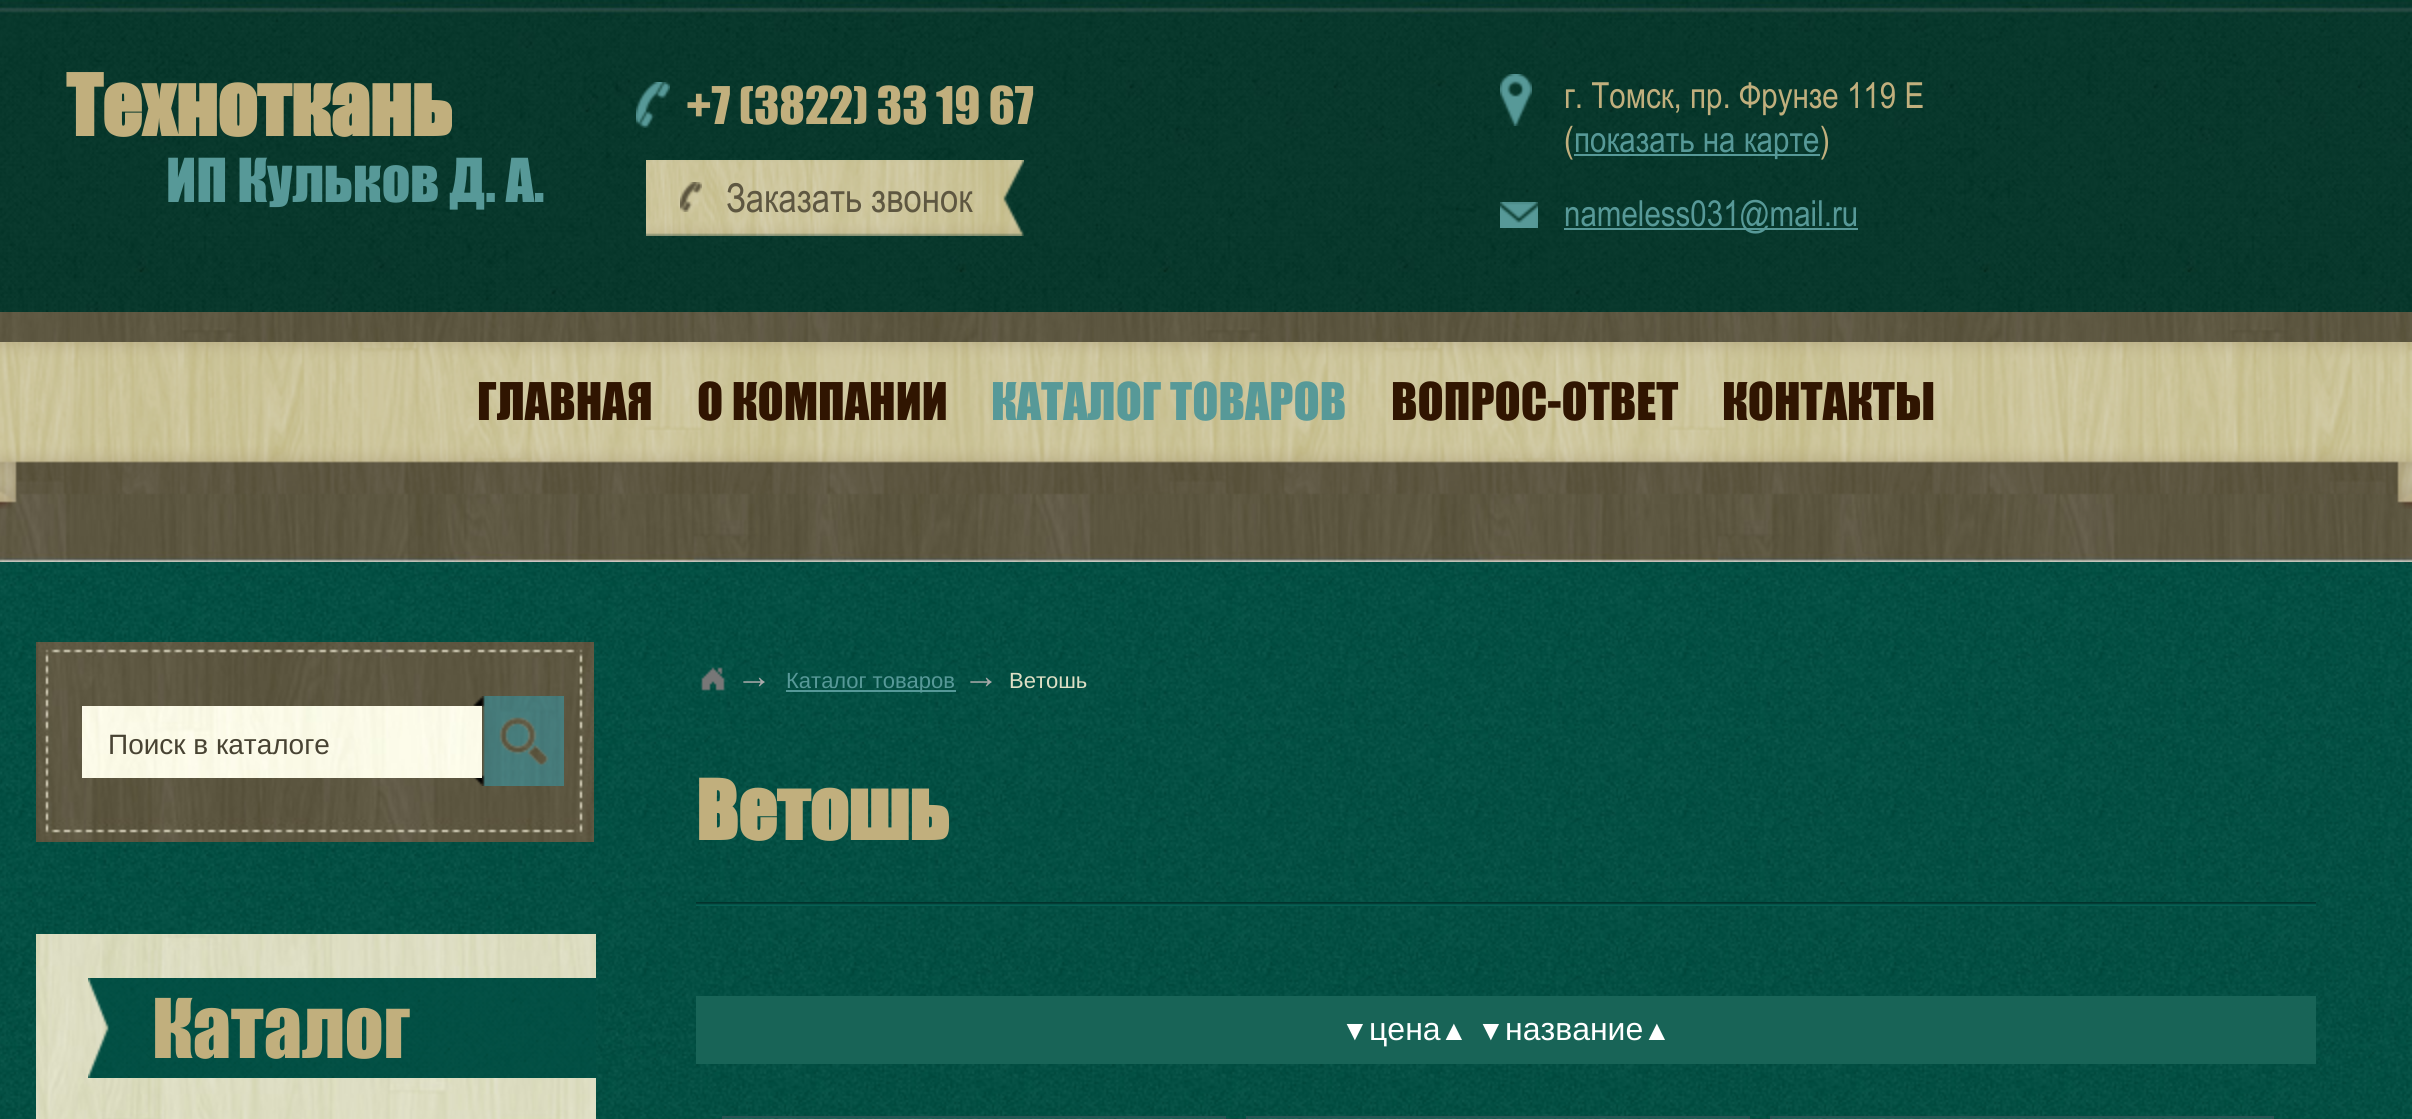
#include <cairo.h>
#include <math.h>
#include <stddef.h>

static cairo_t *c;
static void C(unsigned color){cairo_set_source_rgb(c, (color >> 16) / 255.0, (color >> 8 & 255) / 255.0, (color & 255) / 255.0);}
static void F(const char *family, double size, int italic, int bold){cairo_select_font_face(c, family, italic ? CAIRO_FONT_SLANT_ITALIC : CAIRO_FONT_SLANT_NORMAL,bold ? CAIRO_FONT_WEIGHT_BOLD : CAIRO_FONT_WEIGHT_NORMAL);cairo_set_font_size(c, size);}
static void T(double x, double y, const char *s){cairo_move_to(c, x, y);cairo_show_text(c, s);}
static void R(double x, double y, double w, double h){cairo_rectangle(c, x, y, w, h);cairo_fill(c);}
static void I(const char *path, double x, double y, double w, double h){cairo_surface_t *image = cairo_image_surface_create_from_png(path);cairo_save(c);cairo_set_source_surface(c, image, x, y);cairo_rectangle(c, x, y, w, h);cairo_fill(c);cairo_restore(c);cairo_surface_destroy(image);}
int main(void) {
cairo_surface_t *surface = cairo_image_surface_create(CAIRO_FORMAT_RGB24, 2412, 1119);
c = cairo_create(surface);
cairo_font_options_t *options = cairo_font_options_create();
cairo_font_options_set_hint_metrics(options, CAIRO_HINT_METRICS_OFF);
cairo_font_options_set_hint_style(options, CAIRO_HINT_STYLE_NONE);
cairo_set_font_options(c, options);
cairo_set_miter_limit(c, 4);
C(0xffffff);
cairo_paint(c);
I("1.png",0,562,2412,557);
I("2.png",0,0,2412,312);
F("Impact",78,0,1);
C(0xc1af7d);
T(66,136,"Техноткань");
F("Impact",56,0,0);
C(0x579998);
T(166,202,"ИП Кульков Д. А.");
I("3.png",636,82,34,46);
F("Impact",48,0,0);
C(0xc1af7d);
T(686,124,"+7 (3822) 33 19 67");
I("4.png",646,160,378,76);
I("5.png",680,182,22,30);
F("Arial",40,0,0);
C(0x5e5741);
T(726,212,"Заказать звонок");
I("6.png",1500,74,32,52);
F("Arial",36,0,0);
C(0xc1af7d);
T(1564,108,"г. Томск, пр. Фрунзе 119 Е");
T(1564,152,"(");
C(0x579998);
R(1574,154,246,2);
T(1574,152,"показать на карте");
C(0xc1af7d);
T(1820,152,")");
I("7.png",1500,202,38,26);
C(0x579998);
R(1564,228,294,2);
T(1564,226,"nameless031@mail.ru");
I("8.png",0,312,2412,250);
I("9.png",0,342,2412,167);
F("Impact",48,0,0);
C(0x301501);
T(477,420,"ГЛАВНАЯ");
T(697,420,"О КОМПАНИИ");
C(0x579998);
T(991,420,"КАТАЛОГ ТОВАРОВ");
C(0x301501);
T(1391,420,"ВОПРОС-ОТВЕТ");
T(1722,420,"КОНТАКТЫ");
I("10.png",36,642,558,200);
I("12.png",473,696,91,90);
I("11.png",82,706,400,72);
F("Liberation Sans",28,0,0);
C(0x484333);
T(108,754,"Поиск в каталоге");
I("13.png",36,934,560,185);
I("14.png",88,978,508,100);
F("Impact",76,0,0);
C(0xc1af7d);
T(152,1058,"Каталог");
I("15.png",701,667,24,24);
F("Liberation Sans",36,1,0);
C(0xaaaaaa);
T(736,688,"→");
C(0x549897);
R(786,690,170,2);
F("Liberation Sans",22,0,0);
C(0x579998);
T(786,688,"Каталог товаров");
F("Liberation Sans",36,1,0);
C(0xaaaaaa);
T(963,688,"→");
F("Liberation Sans",22,0,0);
C(0xdedfc5);
T(1009,688,"Ветошь");
I("16.png",696,902,1620,4);
F("Impact",76,0,1);
C(0xc1af7d);
T(696,840,"Ветошь");
C(0x186457);
R(696,996,1620,68);
F("Liberation Sans",28,0,0);
C(0xffffff);
T(1341,1040,"▼");
F("Liberation Sans",32,0,0);
T(1369,1040,"цена");
F("Liberation Sans",28,0,0);
T(1440,1040,"▲");
T(1477,1040,"▼");
F("Liberation Sans",32,0,0);
T(1505,1040,"название");
F("Liberation Sans",28,0,0);
T(1643,1040,"▲");
I("17.png",724,1118,500,1);
cairo_rectangle(c,723,1117,502,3);
C(0x275453);
cairo_stroke(c);
I("17.png",1248,1118,500,1);
cairo_rectangle(c,1247,1117,502,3);
cairo_stroke(c);
I("17.png",1772,1118,500,1);
cairo_rectangle(c,1771,1117,502,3);
cairo_stroke(c);
cairo_surface_write_to_png(surface, "o.png");
cairo_font_options_destroy(options);
cairo_destroy(c);
cairo_surface_destroy(surface);
return 0;
}
